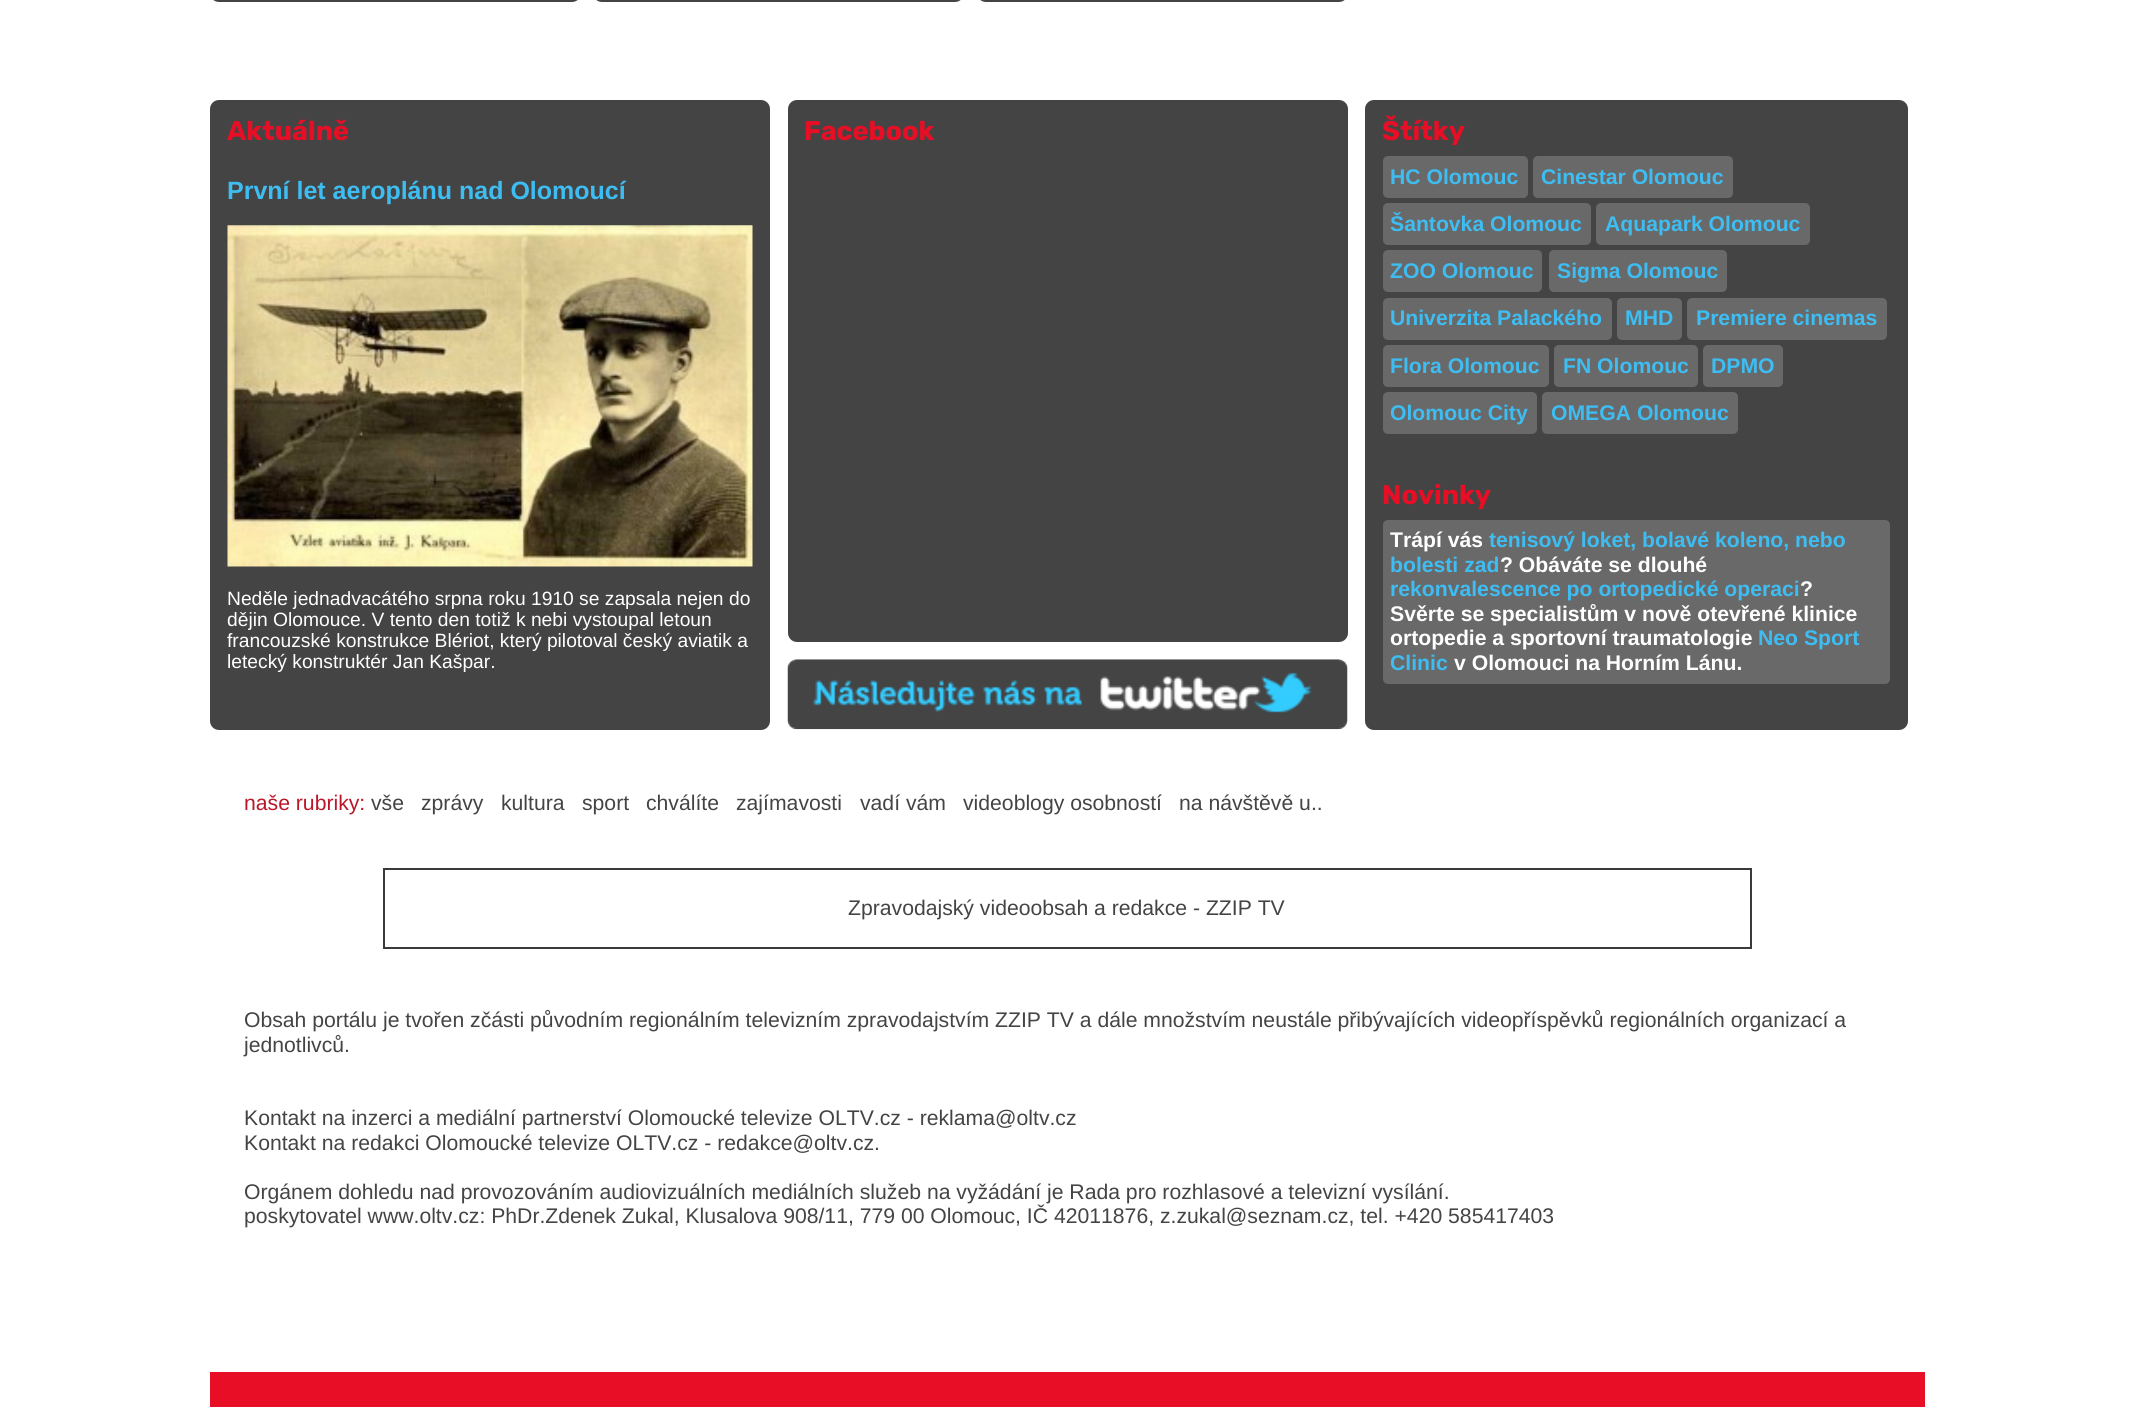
#include <cairo.h>
#include <math.h>
#include <stddef.h>

static cairo_t *c;
static void C(unsigned color){cairo_set_source_rgb(c, (color >> 16) / 255.0, (color >> 8 & 255) / 255.0, (color & 255) / 255.0);}
static void F(const char *family, double size, int italic, int bold){cairo_select_font_face(c, family, italic ? CAIRO_FONT_SLANT_ITALIC : CAIRO_FONT_SLANT_NORMAL,bold ? CAIRO_FONT_WEIGHT_BOLD : CAIRO_FONT_WEIGHT_NORMAL);cairo_set_font_size(c, size);}
static void T(double x, double y, const char *s){cairo_move_to(c, x, y);cairo_show_text(c, s);}
static void R(double x, double y, double w, double h){cairo_rectangle(c, x, y, w, h);cairo_fill(c);}
static void Q(double x, double y, double w, double h, double r){cairo_new_sub_path(c);cairo_arc(c, x + w - r, y + h - r, r, 0, M_PI / 2);cairo_arc(c, x + r, y + h - r, r, M_PI / 2, M_PI);cairo_arc(c, x + r, y + r, r, M_PI, 1.5 * M_PI);cairo_arc(c, x + w - r, y + r, r, 1.5 * M_PI, 2 * M_PI);cairo_close_path(c);}
static void I(const char *path, double x, double y, double w, double h){cairo_surface_t *image = cairo_image_surface_create_from_png(path);cairo_save(c);cairo_set_source_surface(c, image, x, y);cairo_rectangle(c, x, y, w, h);cairo_fill(c);cairo_restore(c);cairo_surface_destroy(image);}
int main(void) {
cairo_surface_t *surface = cairo_image_surface_create(CAIRO_FORMAT_RGB24, 2132, 1407);
c = cairo_create(surface);
cairo_font_options_t *options = cairo_font_options_create();
cairo_font_options_set_hint_metrics(options, CAIRO_HINT_METRICS_OFF);
cairo_font_options_set_hint_style(options, CAIRO_HINT_STYLE_NONE);
cairo_set_font_options(c, options);
cairo_set_miter_limit(c, 4);
C(0xffffff);
cairo_paint(c);
C(0x444444);
Q(210,-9,371,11,9);
cairo_fill(c);
Q(593,-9,371,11,9);
cairo_fill(c);
Q(977,-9,371,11,9);
cairo_fill(c);
Q(210,100,560,630,9);
cairo_fill(c);
F("Rubik Light",27,0,0);
C(0xe70e25);
T(227,140,"Aktuálně");
F("Liberation Sans",25,0,1);
C(0x3ebdf2);
T(227,199,"První let aeroplánu nad Olomoucí");
I("1.png",227,225,526,342);
F("Liberation Sans",19.25,0,0);
C(0xffffff);
T(227,605,"Neděle jednadvacátého srpna roku 1910 se zapsala nejen do");
T(227,626,"dějin Olomouce. V tento den totiž k nebi vystoupal letoun");
T(227,647,"francouzské konstrukce Blériot, který pilotoval český aviatik a");
T(227,668,"letecký konstruktér Jan Kašpar.");
C(0x444444);
Q(788,100,560,542,9);
cairo_fill(c);
F("Rubik Light",27,0,0);
C(0xe70e25);
T(804,140,"Facebook");
I("2.png",787,659,561,71);
C(0x444444);
Q(1365,100,543,630,9);
cairo_fill(c);
C(0xe70e25);
T(1382,140,"Štítky");
C(0x696969);
Q(1383,156,145,42,5);
cairo_fill(c);
F("Liberation Sans",21.18,0,1);
C(0x3ebdf2);
T(1390,184,"HC Olomouc");
C(0x696969);
Q(1533,156,200,42,5);
cairo_fill(c);
C(0x3ebdf2);
T(1541,184,"Cinestar Olomouc");
C(0x696969);
Q(1383,203,208,42,5);
cairo_fill(c);
C(0x3ebdf2);
T(1390,231,"Šantovka Olomouc");
C(0x696969);
Q(1596,203,214,42,5);
cairo_fill(c);
C(0x3ebdf2);
T(1605,231,"Aquapark Olomouc");
C(0x696969);
Q(1383,250,159,42,5);
cairo_fill(c);
C(0x3ebdf2);
T(1390,278,"ZOO Olomouc");
C(0x696969);
Q(1549,250,178,42,5);
cairo_fill(c);
C(0x3ebdf2);
T(1557,278,"Sigma Olomouc");
C(0x696969);
Q(1383,298,229,42,5);
cairo_fill(c);
C(0x3ebdf2);
T(1390,325,"Univerzita Palackého");
C(0x696969);
Q(1617,298,65,42,5);
cairo_fill(c);
C(0x3ebdf2);
T(1625,325,"MHD");
C(0x696969);
Q(1687,298,200,42,5);
cairo_fill(c);
C(0x3ebdf2);
T(1696,325,"Premiere cinemas");
C(0x696969);
Q(1383,345,166,42,5);
cairo_fill(c);
C(0x3ebdf2);
T(1390,373,"Flora Olomouc");
C(0x696969);
Q(1554,345,144,42,5);
cairo_fill(c);
C(0x3ebdf2);
T(1563,373,"FN Olomouc");
C(0x696969);
Q(1703,345,80,42,5);
cairo_fill(c);
C(0x3ebdf2);
T(1711,373,"DPMO");
C(0x696969);
Q(1383,392,154,42,5);
cairo_fill(c);
C(0x3ebdf2);
T(1390,420,"Olomouc City");
C(0x696969);
Q(1542,392,196,42,5);
cairo_fill(c);
C(0x3ebdf2);
T(1551,420,"OMEGA Olomouc");
F("Rubik Light",27,0,0);
C(0xe70e25);
T(1382,504,"Novinky");
C(0x696969);
Q(1383,520,507,164,5);
cairo_fill(c);
F("Liberation Sans",21.18,0,1);
C(0xffffff);
T(1390,547,"Trápí vás");
C(0x3ebdf2);
T(1489,547,"tenisový loket, bolavé koleno, nebo");
T(1390,572,"bolesti zad");
C(0xffffff);
T(1500,572,"? Obáváte se dlouhé");
C(0x3ebdf2);
T(1390,596,"rekonvalescence po ortopedické operaci");
C(0xffffff);
T(1800,596,"?");
T(1390,621,"Svěrte se specialistům v nově otevřené klinice");
T(1390,645,"ortopedie a sportovní traumatologie");
C(0x3ebdf2);
T(1758,645,"Neo Sport");
T(1390,670,"Clinic");
C(0xffffff);
T(1454,670,"v Olomouci na Horním Lánu.");
C(0xe70e25);
R(210,1372,1715,35);
F("Liberation Sans",21.18,0,0);
C(0xba1729);
T(244,810,"naše rubriky:");
C(0x444444);
T(371,810,"vše");
T(421,810,"zprávy");
T(501,810,"kultura");
T(582,810,"sport");
T(646,810,"chválíte");
T(736,810,"zajímavosti");
T(860,810,"vadí vám");
T(963,810,"videoblogy osobností");
T(1179,810,"na návštěvě u..");
cairo_rectangle(c,384,869,1367,79);
C(0x3a3a3a);
cairo_stroke(c);
C(0x444444);
T(848,915,"Zpravodajský videoobsah a redakce - ZZIP TV");
T(244,1027,"Obsah portálu je tvořen zčásti původním regionálním televizním zpravodajstvím");
T(995,1027,"ZZIP TV a dále množstvím neustále přibývajících videopříspěvků regionálních organizací a");
T(244,1052,"jednotlivců.");
T(244,1125,"Kontakt na inzerci a mediální partnerství Olomoucké televize OLTV.cz - reklama@oltv.cz");
T(244,1150,"Kontakt na redakci Olomoucké televize OLTV.cz - redakce@oltv.cz.");
T(244,1199,"Orgánem dohledu nad provozováním audiovizuálních mediálních služeb na vyžádání je Rada pro rozhlasové a televizní vysílání.");
T(244,1223,"poskytovatel www.oltv.cz: PhDr.Zdenek Zukal, Klusalova 908/11, 779 00 Olomouc, IČ 42011876, z.zukal@seznam.cz, tel. +420 585417403");
cairo_surface_write_to_png(surface, "o.png");
cairo_font_options_destroy(options);
cairo_destroy(c);
cairo_surface_destroy(surface);
return 0;
}
